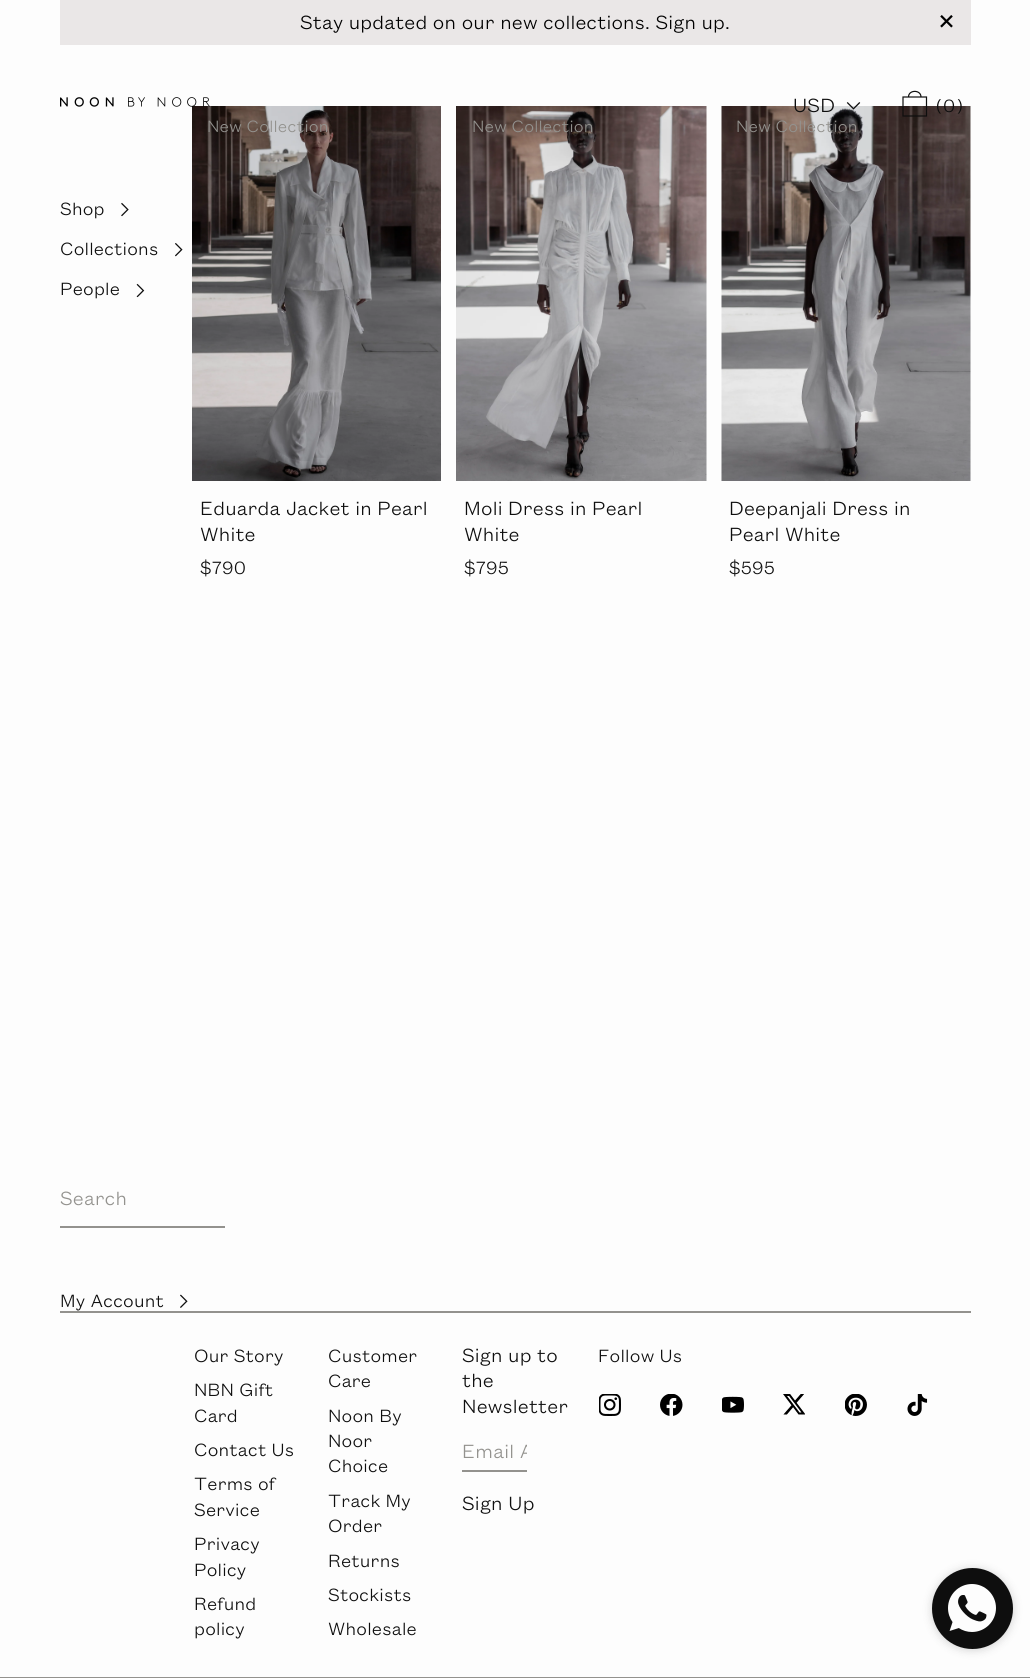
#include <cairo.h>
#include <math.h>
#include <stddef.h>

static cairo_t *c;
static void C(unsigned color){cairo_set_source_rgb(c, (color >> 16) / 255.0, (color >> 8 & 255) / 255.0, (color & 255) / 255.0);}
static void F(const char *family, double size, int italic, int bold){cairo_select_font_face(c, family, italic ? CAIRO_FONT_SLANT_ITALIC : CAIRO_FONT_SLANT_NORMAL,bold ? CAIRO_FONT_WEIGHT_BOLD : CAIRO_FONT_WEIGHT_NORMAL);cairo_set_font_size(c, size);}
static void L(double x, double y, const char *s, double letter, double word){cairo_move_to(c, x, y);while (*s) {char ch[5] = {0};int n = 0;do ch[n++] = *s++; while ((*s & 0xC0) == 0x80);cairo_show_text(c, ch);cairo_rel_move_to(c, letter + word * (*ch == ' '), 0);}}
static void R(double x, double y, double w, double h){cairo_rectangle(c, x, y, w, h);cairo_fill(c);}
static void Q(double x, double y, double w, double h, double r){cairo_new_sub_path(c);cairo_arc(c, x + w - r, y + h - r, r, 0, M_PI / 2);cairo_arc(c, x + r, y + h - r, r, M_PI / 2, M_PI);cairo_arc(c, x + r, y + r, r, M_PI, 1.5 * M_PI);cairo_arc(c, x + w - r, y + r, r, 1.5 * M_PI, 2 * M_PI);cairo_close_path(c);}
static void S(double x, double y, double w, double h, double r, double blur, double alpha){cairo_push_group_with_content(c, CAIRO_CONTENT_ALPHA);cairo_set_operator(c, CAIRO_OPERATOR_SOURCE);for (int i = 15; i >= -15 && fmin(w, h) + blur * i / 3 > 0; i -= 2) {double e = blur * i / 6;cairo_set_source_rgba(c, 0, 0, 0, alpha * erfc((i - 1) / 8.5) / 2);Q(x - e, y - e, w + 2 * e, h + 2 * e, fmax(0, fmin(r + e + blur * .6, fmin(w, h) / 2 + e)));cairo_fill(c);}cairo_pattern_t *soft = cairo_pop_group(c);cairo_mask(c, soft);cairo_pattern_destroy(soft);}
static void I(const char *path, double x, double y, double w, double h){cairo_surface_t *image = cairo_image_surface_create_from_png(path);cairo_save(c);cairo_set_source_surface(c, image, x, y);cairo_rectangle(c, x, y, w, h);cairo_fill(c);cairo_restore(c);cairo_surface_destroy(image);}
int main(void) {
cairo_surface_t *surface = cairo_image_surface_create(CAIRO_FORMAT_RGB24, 1030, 1678);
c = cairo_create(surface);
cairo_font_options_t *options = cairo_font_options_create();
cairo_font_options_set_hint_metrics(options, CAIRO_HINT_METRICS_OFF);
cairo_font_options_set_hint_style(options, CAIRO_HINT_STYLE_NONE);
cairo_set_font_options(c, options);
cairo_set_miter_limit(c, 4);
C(0xfdfdfd);
cairo_paint(c);
C(0xeae7e7);
R(60,0,911,45);
F("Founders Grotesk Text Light",21,0,0);
C(0x000000);
L(300,29,"Stay updated on our new collections. Sign up.",.2,0);
I("1.png",940,15,13,13);
I("8.png",192,106,249,375);
I("2.png",60,97,150,10);
I("10.png",721,106,250,375);
C(0x0e0e0e);
L(793,112,"USD",.25,0);
I("3.png",846,102,15,8);
cairo_new_path(c);
cairo_move_to(c,908.5,97);
cairo_curve_to(c,908.5,89.5,921,89.5,921,97);
cairo_move_to(c,903,97);
cairo_line_to(c,903,116);
cairo_line_to(c,926.5,116);
cairo_line_to(c,926.5,97);
cairo_close_path(c);
cairo_set_line_width(c,1.2);
cairo_set_line_cap(c,CAIRO_LINE_CAP_ROUND);
cairo_stroke(c);
F("Founders Grotesk Text Light",19.5,0,0);
L(936,112,"(",.2,0);
L(943,112,"0",.2,0);
L(957,112,")",.2,0);
L(60,215,"Shop",.2,0);
I("4.png",121,202,8,15);
L(60,255,"Collections",.2,0);
I("5.png",175,243,8,14);
L(60,295,"People",.2,0);
I("6.png",136,283,9,15);
C(0x93928e);
R(60,1226,165,2);
F("Founders Grotesk Text Light",21,0,0);
L(60,1205,"Search",.25,0);
F("Founders Grotesk Text Light",19.5,0,0);
C(0x0e0e0e);
L(60,1307,"My Account",.2,0);
I("7.png",180,1294,8,14);
F("Founders Grotesk Text Light",18,0,0);
C(0x93928e);
L(207,132,"New Collection",.2,0);
F("Founders Grotesk Text Light",21,0,0);
C(0x0e0e0e);
L(200,515,"Eduarda Jacket in Pearl",.2,0);
L(200,541,"White",.2,0);
F("Founders Grotesk Text Light",19.5,0,0);
L(200,574,"$790",.2,0);
I("9.png",456,106,251,375);
F("Founders Grotesk Text Light",18,0,0);
C(0x93928e);
L(472,132,"New Collection",.2,0);
F("Founders Grotesk Text Light",21,0,0);
C(0x0e0e0e);
L(464,515,"Moli Dress in Pearl",.2,0);
L(464,541,"White",.2,0);
F("Founders Grotesk Text Light",19.5,0,0);
L(464,574,"$795",.2,0);
F("Founders Grotesk Text Light",18,0,0);
C(0x93928e);
L(736,132,"New Collection",.2,0);
F("Founders Grotesk Text Light",21,0,0);
C(0x0e0e0e);
L(729,515,"Deepanjali Dress in",.2,0);
L(729,541,"Pearl White",.2,0);
F("Founders Grotesk Text Light",19.5,0,0);
L(729,574,"$595",.2,0);
C(0x93928e);
R(60,1311,911,2);
C(0x0e0e0e);
L(194,1362,"Our Story",.2,0);
L(194,1396,"NBN Gift",.2,0);
L(194,1422,"Card",.2,0);
L(194,1456,"Contact Us",.2,0);
L(194,1490,"Terms of",.2,0);
L(194,1516,"Service",.2,0);
L(194,1550,"Privacy",.2,0);
L(194,1576,"Policy",.2,0);
L(194,1610,"Refund",.2,0);
L(194,1635,"policy",.2,0);
L(328,1362,"Customer",.2,0);
L(328,1387,"Care",.2,0);
L(328,1422,"Noon By",.2,0);
L(328,1447,"Noor",.2,0);
L(328,1472,"Choice",.2,0);
L(328,1507,"Track My",.2,0);
L(328,1532,"Order",.2,0);
L(328,1567,"Returns",.2,0);
L(328,1601,"Stockists",.2,0);
L(328,1635,"Wholesale",.2,0);
F("Founders Grotesk Text Light",21,0,0);
L(462,1362,"Sign up to",.2,0);
L(462,1387,"the",.2,0);
L(462,1413,"Newsletter",.2,0);
C(0x93928e);
R(462,1470,65,2);
cairo_save(c);
cairo_rectangle(c,462,1437,65,27);
cairo_clip(c);
L(462,1458,"Email A",.25,0);
cairo_restore(c);
C(0x0e0e0e);
L(462,1510,"Sign Up",.25,0);
F("Founders Grotesk Text Light",19.5,0,0);
L(598,1362,"Follow Us",.2,0);
I("11.png",599,1394,22,22);
I("12.png",660,1394,23,22);
I("13.png",722,1396,22,17);
I("14.png",783,1394,22,21);
I("15.png",845,1394,22,22);
I("16.png",907,1394,21,22);
C(0x1b1b1b);
S(932,1569,81,81,40.5,4.5,.2);
C(0x0e0e0e);
cairo_arc(c,972.5,1608.5,39.5,0,2 * M_PI);
cairo_fill_preserve(c);
cairo_set_line_width(c,2);
cairo_set_line_cap(c,CAIRO_LINE_CAP_BUTT);
cairo_stroke(c);
I("17.png",948,1584,48,48);
C(0x93928e);
R(0,1677,1030,1);
cairo_surface_write_to_png(surface, "o.png");
cairo_font_options_destroy(options);
cairo_destroy(c);
cairo_surface_destroy(surface);
return 0;
}
